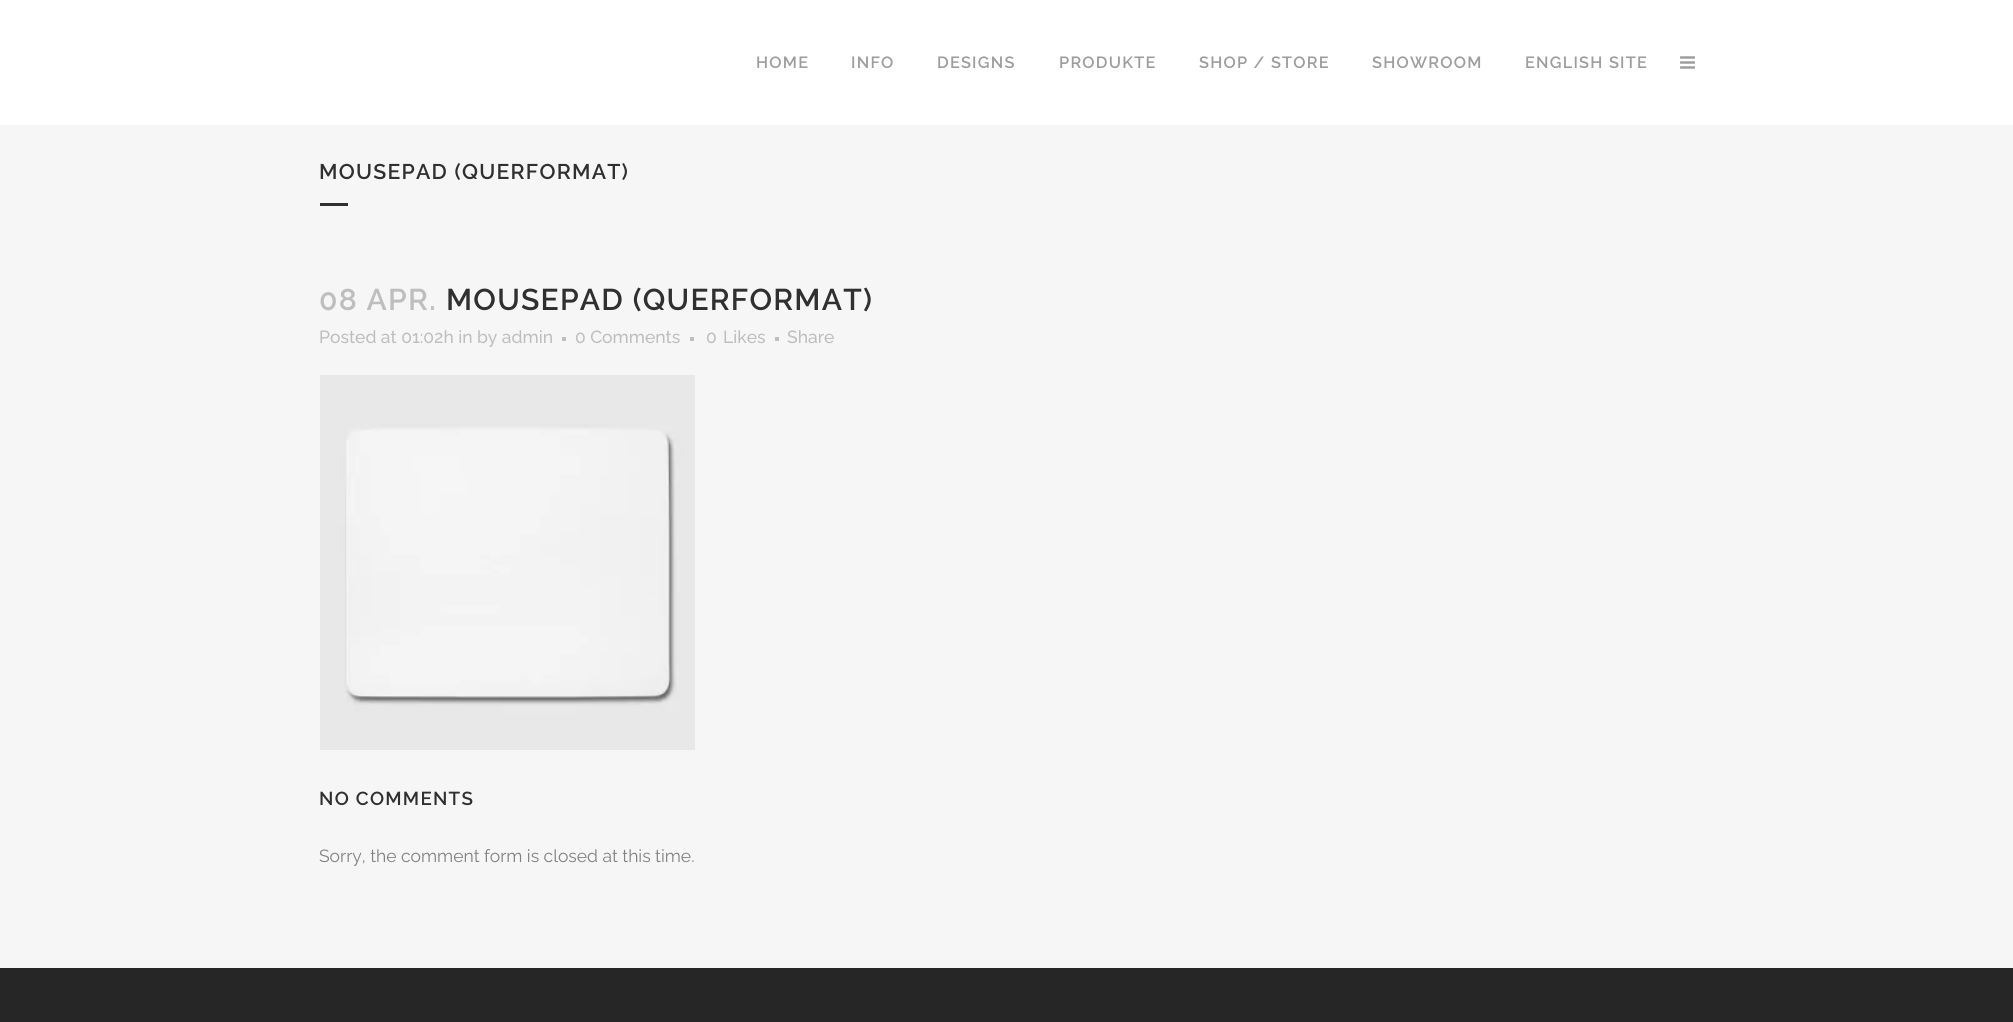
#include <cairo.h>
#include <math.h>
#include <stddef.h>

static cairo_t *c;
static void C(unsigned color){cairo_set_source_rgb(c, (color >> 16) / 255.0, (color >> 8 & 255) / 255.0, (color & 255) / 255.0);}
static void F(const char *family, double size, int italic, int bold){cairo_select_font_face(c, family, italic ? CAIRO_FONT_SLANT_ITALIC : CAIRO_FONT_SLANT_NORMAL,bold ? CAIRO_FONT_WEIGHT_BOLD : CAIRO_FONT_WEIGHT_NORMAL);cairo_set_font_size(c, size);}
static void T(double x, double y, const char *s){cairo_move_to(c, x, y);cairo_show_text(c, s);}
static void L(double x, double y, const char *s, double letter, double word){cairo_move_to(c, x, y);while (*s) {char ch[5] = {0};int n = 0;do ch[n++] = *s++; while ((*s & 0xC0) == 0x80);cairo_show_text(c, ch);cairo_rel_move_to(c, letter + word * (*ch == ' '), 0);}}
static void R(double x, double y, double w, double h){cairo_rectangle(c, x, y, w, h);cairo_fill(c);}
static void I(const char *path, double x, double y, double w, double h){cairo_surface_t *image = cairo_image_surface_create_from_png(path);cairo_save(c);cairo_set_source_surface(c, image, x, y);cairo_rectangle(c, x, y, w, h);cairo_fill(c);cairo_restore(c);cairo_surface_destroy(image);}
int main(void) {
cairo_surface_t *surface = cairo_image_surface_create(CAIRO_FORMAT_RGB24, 2013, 1022);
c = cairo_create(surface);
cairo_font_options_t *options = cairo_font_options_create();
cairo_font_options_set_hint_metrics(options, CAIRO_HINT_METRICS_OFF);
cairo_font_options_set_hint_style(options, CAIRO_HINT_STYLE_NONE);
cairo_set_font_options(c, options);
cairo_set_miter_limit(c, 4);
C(0xf6f6f6);
cairo_paint(c);
C(0xffffff);
R(0,0,2013,125);
F("Raleway SemiBold",16.25,0,0);
C(0x9d9d9d);
L(756,68,"HOME",1.25,0);
L(851,68,"INFO",1.25,0);
L(937,68,"DESIGNS",1.25,0);
L(1059,68,"PRODUKTE",1.25,0);
L(1199,68,"SHOP / STORE",1.25,0);
L(1372,68,"SHOWROOM",1.25,0);
L(1525,68,"ENGLISH SITE",1.25,0);
I("1.png",1680,56,15,13);
F("Raleway SemiBold",21.25,0,0);
C(0x303030);
L(319,179,"MOUSEPAD (QUERFORMAT)",1.25,0);
R(320,203,28,3);
F("Raleway SemiBold",30,0,0);
C(0xbebebe);
L(319,310,"08 APR.",1.25,0);
C(0x303030);
L(446,310,"MOUSEPAD (QUERFORMAT)",1.25,0);
F("Raleway Medium",17.5,0,0);
C(0xbebebe);
T(319,343,"Posted at 01:02h in by admin");
R(562,337,4,4);
T(575,343,"0 Comments");
R(690,337,4,4);
T(706,343,"0");
T(723,343,"Likes");
R(775,337,4,4);
T(787,343,"Share");
I("2.png",320,375,375,375);
F("Raleway SemiBold",18.75,0,0);
C(0x303030);
L(319,805,"NO COMMENTS",1.25,0);
F("Raleway",17.5,0,0);
C(0x818181);
T(319,862,"Sorry, the comment form is closed at this time.");
C(0x262626);
R(0,968,2013,54);
cairo_surface_write_to_png(surface, "o.png");
cairo_font_options_destroy(options);
cairo_destroy(c);
cairo_surface_destroy(surface);
return 0;
}
